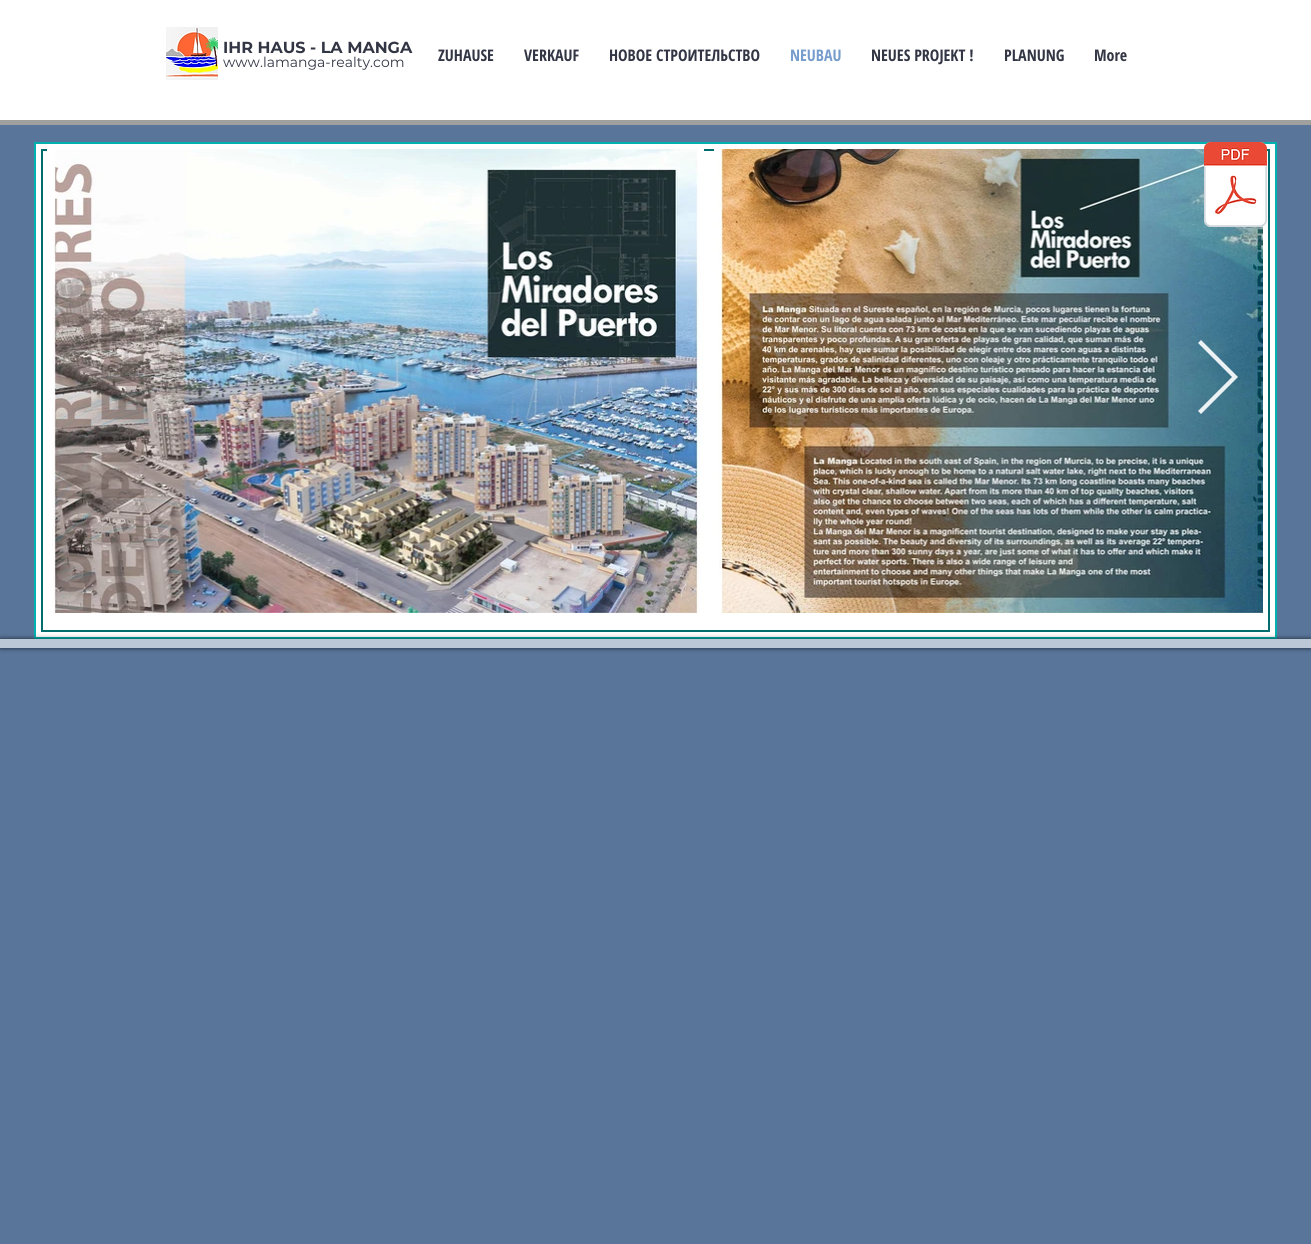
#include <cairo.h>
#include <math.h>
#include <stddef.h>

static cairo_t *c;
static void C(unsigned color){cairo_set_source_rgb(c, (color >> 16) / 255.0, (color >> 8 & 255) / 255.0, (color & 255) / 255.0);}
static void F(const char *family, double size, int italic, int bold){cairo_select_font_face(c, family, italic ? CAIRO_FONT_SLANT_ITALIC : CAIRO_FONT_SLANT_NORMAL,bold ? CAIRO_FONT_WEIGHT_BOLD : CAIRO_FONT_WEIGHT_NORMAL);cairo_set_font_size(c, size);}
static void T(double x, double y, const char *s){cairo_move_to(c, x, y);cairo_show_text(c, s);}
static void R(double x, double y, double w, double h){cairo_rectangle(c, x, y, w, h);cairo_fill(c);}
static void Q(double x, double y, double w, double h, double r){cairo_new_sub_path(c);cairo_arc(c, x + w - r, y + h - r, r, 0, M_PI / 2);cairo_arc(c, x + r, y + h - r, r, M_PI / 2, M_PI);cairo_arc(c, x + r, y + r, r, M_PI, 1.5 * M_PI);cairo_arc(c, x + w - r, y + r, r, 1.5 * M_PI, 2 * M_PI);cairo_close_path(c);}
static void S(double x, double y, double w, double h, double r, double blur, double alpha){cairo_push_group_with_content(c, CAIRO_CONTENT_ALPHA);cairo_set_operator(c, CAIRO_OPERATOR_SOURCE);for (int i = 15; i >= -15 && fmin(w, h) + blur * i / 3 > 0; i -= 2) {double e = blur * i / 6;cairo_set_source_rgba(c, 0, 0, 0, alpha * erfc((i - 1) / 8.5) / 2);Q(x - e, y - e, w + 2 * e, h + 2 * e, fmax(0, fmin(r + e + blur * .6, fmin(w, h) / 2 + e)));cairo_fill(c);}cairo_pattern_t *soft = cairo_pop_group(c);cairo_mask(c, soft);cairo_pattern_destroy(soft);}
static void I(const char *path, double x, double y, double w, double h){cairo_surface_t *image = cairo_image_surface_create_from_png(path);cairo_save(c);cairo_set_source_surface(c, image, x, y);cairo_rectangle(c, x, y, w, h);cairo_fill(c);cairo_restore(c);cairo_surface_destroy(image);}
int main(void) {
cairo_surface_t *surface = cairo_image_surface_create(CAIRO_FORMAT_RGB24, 1311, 1244);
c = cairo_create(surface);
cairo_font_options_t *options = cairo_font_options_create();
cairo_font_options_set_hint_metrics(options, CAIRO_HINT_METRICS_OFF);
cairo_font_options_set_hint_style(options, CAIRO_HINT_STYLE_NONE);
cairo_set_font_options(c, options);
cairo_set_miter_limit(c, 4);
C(0x59759a);
cairo_paint(c);
C(0xffffff);
R(0,0,1311,120);
C(0xa0a09f);
R(0,120,1311,5);
I("1.png",166,27,52,53);
F("Montserrat",16,0,1);
C(0x323644);
T(223,53,"IHR HAUS - LA MANGA");
F("Montserrat",14,0,0);
T(223,67,"www.lamanga-realty.com");
F("Open Sans Condensed",16,0,1);
T(438,61,"ZUHAUSE");
T(524,61,"VERKAUF");
T(609,61,"НОВОЕ СТРОИТЕЛЬСТВО");
C(0x769ccd);
T(790,61,"NEUBAU");
C(0x323644);
T(871,61,"NEUES PROJEKT !");
T(1004,61,"PLANUNG");
T(1094,61,"More");
C(0xffffff);
cairo_rectangle(c,35,143,1241,495);
cairo_fill_preserve(c);
C(0x01b1af);
cairo_stroke(c);
cairo_rectangle(c,42,150,1227,481);
C(0x006c6d);
cairo_stroke(c);
I("4.png",714,149,549,464);
I("2.png",1204,142,63,85);
I("3.png",47,149,657,464);
cairo_set_source_rgba(c,1,1,1,0.9);
cairo_new_path(c);
cairo_move_to(c,1198,343);
cairo_line_to(c,1201,340);
cairo_line_to(c,1238,377);
cairo_line_to(c,1201,414);
cairo_line_to(c,1198,411);
cairo_line_to(c,1232,377);
cairo_close_path(c);
cairo_fill(c);
C(0x000000);
S(0,639,1311,9,0,2.5,.7);
C(0xbdc8d7);
R(0,639,1311,9);
cairo_surface_write_to_png(surface, "o.png");
cairo_font_options_destroy(options);
cairo_destroy(c);
cairo_surface_destroy(surface);
return 0;
}
